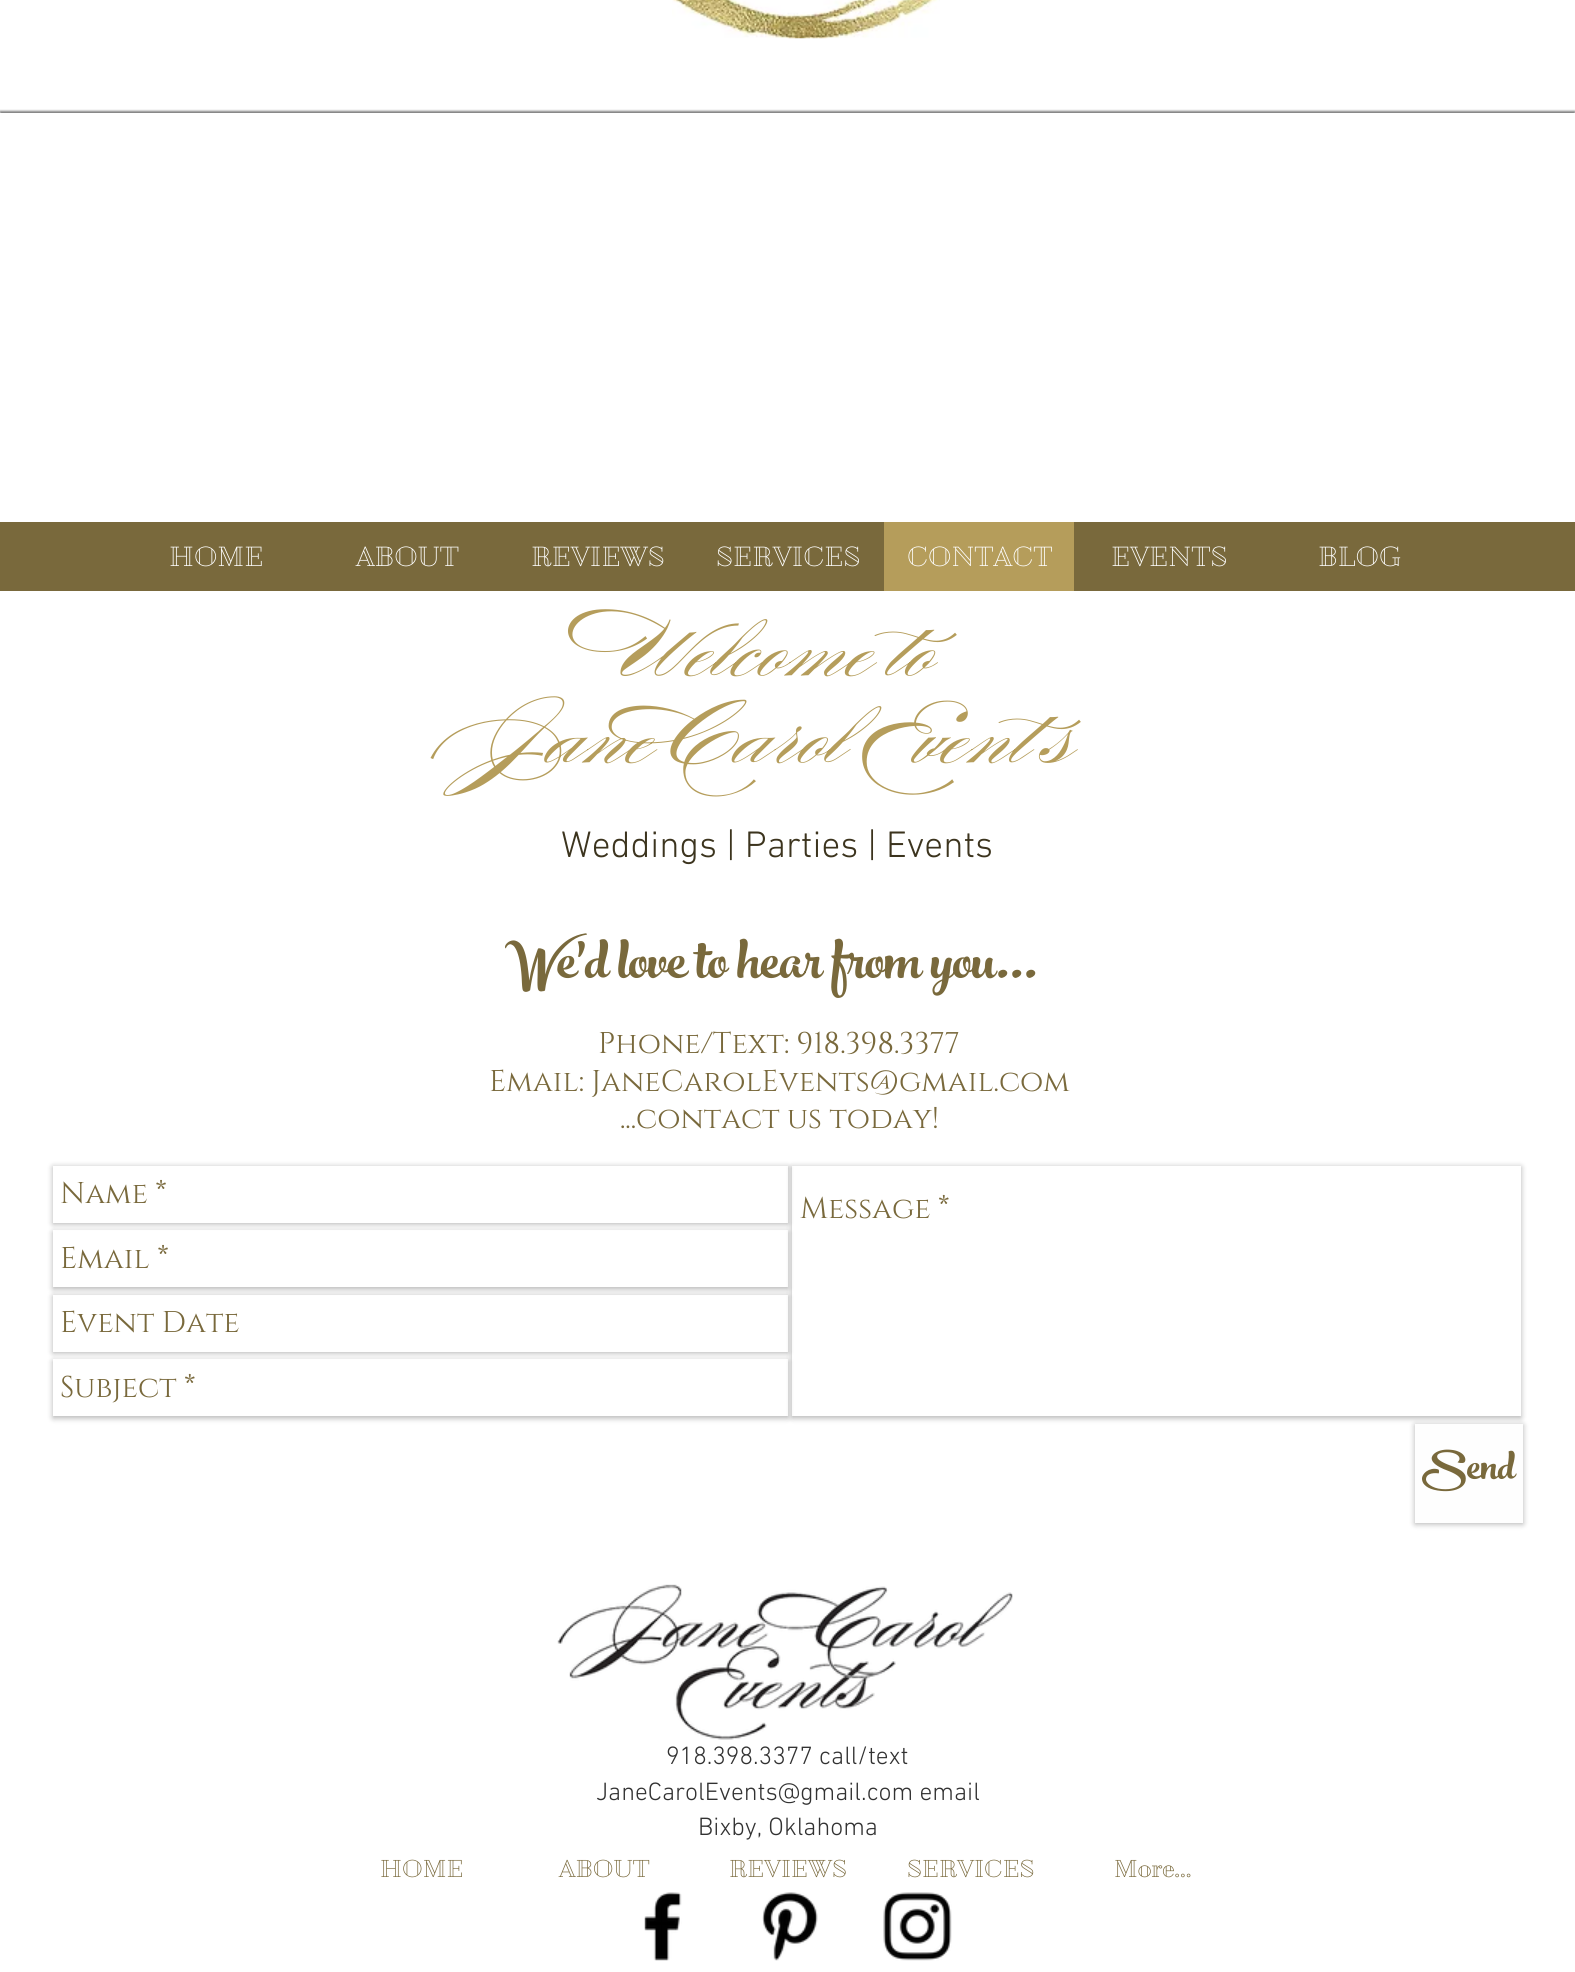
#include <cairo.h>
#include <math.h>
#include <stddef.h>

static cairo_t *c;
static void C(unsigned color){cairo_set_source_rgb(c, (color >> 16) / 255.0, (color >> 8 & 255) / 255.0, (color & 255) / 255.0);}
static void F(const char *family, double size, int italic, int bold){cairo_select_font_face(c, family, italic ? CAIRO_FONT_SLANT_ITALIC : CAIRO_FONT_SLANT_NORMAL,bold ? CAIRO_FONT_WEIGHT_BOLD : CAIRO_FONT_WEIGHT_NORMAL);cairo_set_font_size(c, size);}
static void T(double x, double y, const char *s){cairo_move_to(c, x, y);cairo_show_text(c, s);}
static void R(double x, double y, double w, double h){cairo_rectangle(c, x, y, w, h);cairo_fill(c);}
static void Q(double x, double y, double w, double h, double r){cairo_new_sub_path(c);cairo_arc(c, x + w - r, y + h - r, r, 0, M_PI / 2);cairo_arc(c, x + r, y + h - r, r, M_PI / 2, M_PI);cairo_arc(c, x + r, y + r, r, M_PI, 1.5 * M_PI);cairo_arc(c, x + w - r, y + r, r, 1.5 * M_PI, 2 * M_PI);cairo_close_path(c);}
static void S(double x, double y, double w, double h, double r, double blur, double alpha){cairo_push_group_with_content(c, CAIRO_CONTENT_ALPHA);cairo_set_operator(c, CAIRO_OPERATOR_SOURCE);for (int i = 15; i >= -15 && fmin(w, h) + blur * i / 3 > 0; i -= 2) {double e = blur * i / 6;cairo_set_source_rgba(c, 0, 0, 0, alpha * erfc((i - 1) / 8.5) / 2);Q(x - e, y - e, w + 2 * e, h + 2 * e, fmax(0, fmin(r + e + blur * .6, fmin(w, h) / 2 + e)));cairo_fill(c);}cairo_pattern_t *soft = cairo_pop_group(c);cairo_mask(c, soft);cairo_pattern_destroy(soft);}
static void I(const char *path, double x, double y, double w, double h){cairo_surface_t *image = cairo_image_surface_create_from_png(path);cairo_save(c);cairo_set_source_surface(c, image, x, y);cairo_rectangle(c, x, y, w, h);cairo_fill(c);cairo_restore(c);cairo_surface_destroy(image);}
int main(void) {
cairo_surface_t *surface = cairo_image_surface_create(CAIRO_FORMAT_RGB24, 1575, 1972);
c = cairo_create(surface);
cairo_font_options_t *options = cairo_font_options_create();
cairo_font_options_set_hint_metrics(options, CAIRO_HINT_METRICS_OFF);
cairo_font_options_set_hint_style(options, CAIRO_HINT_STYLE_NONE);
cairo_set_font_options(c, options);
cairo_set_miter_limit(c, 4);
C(0xffffff);
cairo_paint(c);
I("1.png",672,0,268,39);
cairo_save(c);
cairo_rectangle(c,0,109,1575,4);
cairo_clip(c);
C(0x000000);
S(0,111,1575,477,0,1,.5);
cairo_restore(c);
C(0x79693c);
R(0,522,1575,69);
F("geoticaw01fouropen",25.5,0,1);
C(0xffffff);
T(169,566,"HOME");
T(356,566,"ABOUT");
T(531,566,"REVIEWS");
T(716,566,"SERVICES");
C(0xb59d5b);
R(884,522,190,69);
C(0xffffff);
T(907,566,"CONTACT");
T(1111,566,"EVENTS");
T(1318,566,"BLOG");
F("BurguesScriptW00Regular",81,0,0);
C(0xb59d5b);
T(619,674,"Welcome to");
T(479,761,"Jane Carol Event s");
F("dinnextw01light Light",37.5,0,0);
C(0x3c341e);
T(561,857,"Weddings | Parties | Events");
F("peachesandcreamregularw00",82.5,0,0);
C(0x79693c);
T(505,978,"We'd love to hear from you...");
F("Cinzel",30,0,0);
T(598,1053,"Phone/Text: 918.398.3377");
T(489,1091,"Email: JaneCarolEvents@gmail.com");
T(620,1128,"...contact us today!");
cairo_save(c);
cairo_set_fill_rule(c,CAIRO_FILL_RULE_EVEN_ODD);
cairo_new_path(c);
cairo_move_to(c,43,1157);
cairo_line_to(c,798,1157);
cairo_line_to(c,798,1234);
cairo_line_to(c,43,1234);
cairo_close_path(c);
cairo_move_to(c,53,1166);
cairo_line_to(c,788,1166);
cairo_line_to(c,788,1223);
cairo_line_to(c,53,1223);
cairo_close_path(c);
cairo_clip(c);
C(0x000000);
S(53,1167,735,57,0,3,.3);
cairo_restore(c);
cairo_set_source_rgba(c,0.996,0.992,0.992,0.39);
R(53,1166,735,57);
C(0x79693c);
T(60,1203,"Name *");
cairo_save(c);
cairo_set_fill_rule(c,CAIRO_FILL_RULE_EVEN_ODD);
cairo_new_path(c);
cairo_move_to(c,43,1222);
cairo_line_to(c,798,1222);
cairo_line_to(c,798,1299);
cairo_line_to(c,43,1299);
cairo_close_path(c);
cairo_move_to(c,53,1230);
cairo_line_to(c,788,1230);
cairo_line_to(c,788,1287);
cairo_line_to(c,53,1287);
cairo_close_path(c);
cairo_clip(c);
C(0x000000);
S(53,1232,735,57,0,3,.3);
cairo_restore(c);
cairo_set_source_rgba(c,0.996,0.992,0.992,0.39);
R(787,1231,1,56);
cairo_save(c);
cairo_set_fill_rule(c,CAIRO_FILL_RULE_EVEN_ODD);
cairo_new_path(c);
cairo_move_to(c,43,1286);
cairo_line_to(c,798,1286);
cairo_line_to(c,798,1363);
cairo_line_to(c,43,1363);
cairo_close_path(c);
cairo_move_to(c,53,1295);
cairo_line_to(c,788,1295);
cairo_line_to(c,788,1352);
cairo_line_to(c,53,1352);
cairo_close_path(c);
cairo_clip(c);
C(0x000000);
S(53,1296,735,57,0,3,.3);
cairo_restore(c);
R(53,1295,735,57);
cairo_save(c);
cairo_set_fill_rule(c,CAIRO_FILL_RULE_EVEN_ODD);
cairo_new_path(c);
cairo_move_to(c,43,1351);
cairo_line_to(c,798,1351);
cairo_line_to(c,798,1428);
cairo_line_to(c,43,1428);
cairo_close_path(c);
cairo_move_to(c,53,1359);
cairo_line_to(c,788,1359);
cairo_line_to(c,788,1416);
cairo_line_to(c,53,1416);
cairo_close_path(c);
cairo_clip(c);
C(0x000000);
S(53,1361,735,57,0,3,.3);
cairo_restore(c);
R(787,1360,1,56);
cairo_save(c);
cairo_set_fill_rule(c,CAIRO_FILL_RULE_EVEN_ODD);
cairo_new_path(c);
cairo_move_to(c,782,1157);
cairo_line_to(c,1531,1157);
cairo_line_to(c,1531,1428);
cairo_line_to(c,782,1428);
cairo_close_path(c);
cairo_move_to(c,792,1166);
cairo_line_to(c,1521,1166);
cairo_line_to(c,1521,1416);
cairo_line_to(c,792,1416);
cairo_close_path(c);
cairo_clip(c);
C(0x000000);
S(792,1167,729,251,0,3,.3);
cairo_restore(c);
C(0x79693c);
T(800,1218,"Message *");
T(60,1268,"Email *");
T(60,1332,"Event Date");
T(60,1397,"Subject *");
cairo_save(c);
cairo_set_fill_rule(c,CAIRO_FILL_RULE_EVEN_ODD);
cairo_new_path(c);
cairo_move_to(c,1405,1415);
cairo_line_to(c,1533,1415);
cairo_line_to(c,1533,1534);
cairo_line_to(c,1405,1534);
cairo_close_path(c);
cairo_move_to(c,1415,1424);
cairo_line_to(c,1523,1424);
cairo_line_to(c,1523,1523);
cairo_line_to(c,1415,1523);
cairo_close_path(c);
cairo_clip(c);
C(0x000000);
S(1415,1425,108,99,0,3,.3);
cairo_restore(c);
cairo_set_source_rgba(c,0.996,0.992,0.992,0.6);
R(1415,1424,108,99);
F("peachesandcreamregularw00",60,0,0);
C(0x79693c);
T(1422,1479,"Send");
I("2.png",557,1584,456,156);
F("dinnextw01light Light",25.5,0,0);
C(0x323232);
T(666,1764,"918.398.3377 call/text");
T(596,1800,"JaneCarolEvents@gmail.com email");
T(698,1835,"Bixby, Oklahoma");
F("geoticaw01fouropen",22.5,0,1);
C(0x79693c);
T(380,1877,"HOME");
T(559,1877,"ABOUT");
T(729,1877,"REVIEWS");
T(907,1877,"SERVICES");
T(1114,1877,"More...");
I("3.png",644,1892,38,69);
I("4.png",762,1892,56,69);
I("5.png",883,1892,69,69);
cairo_surface_write_to_png(surface, "o.png");
cairo_font_options_destroy(options);
cairo_destroy(c);
cairo_surface_destroy(surface);
return 0;
}
